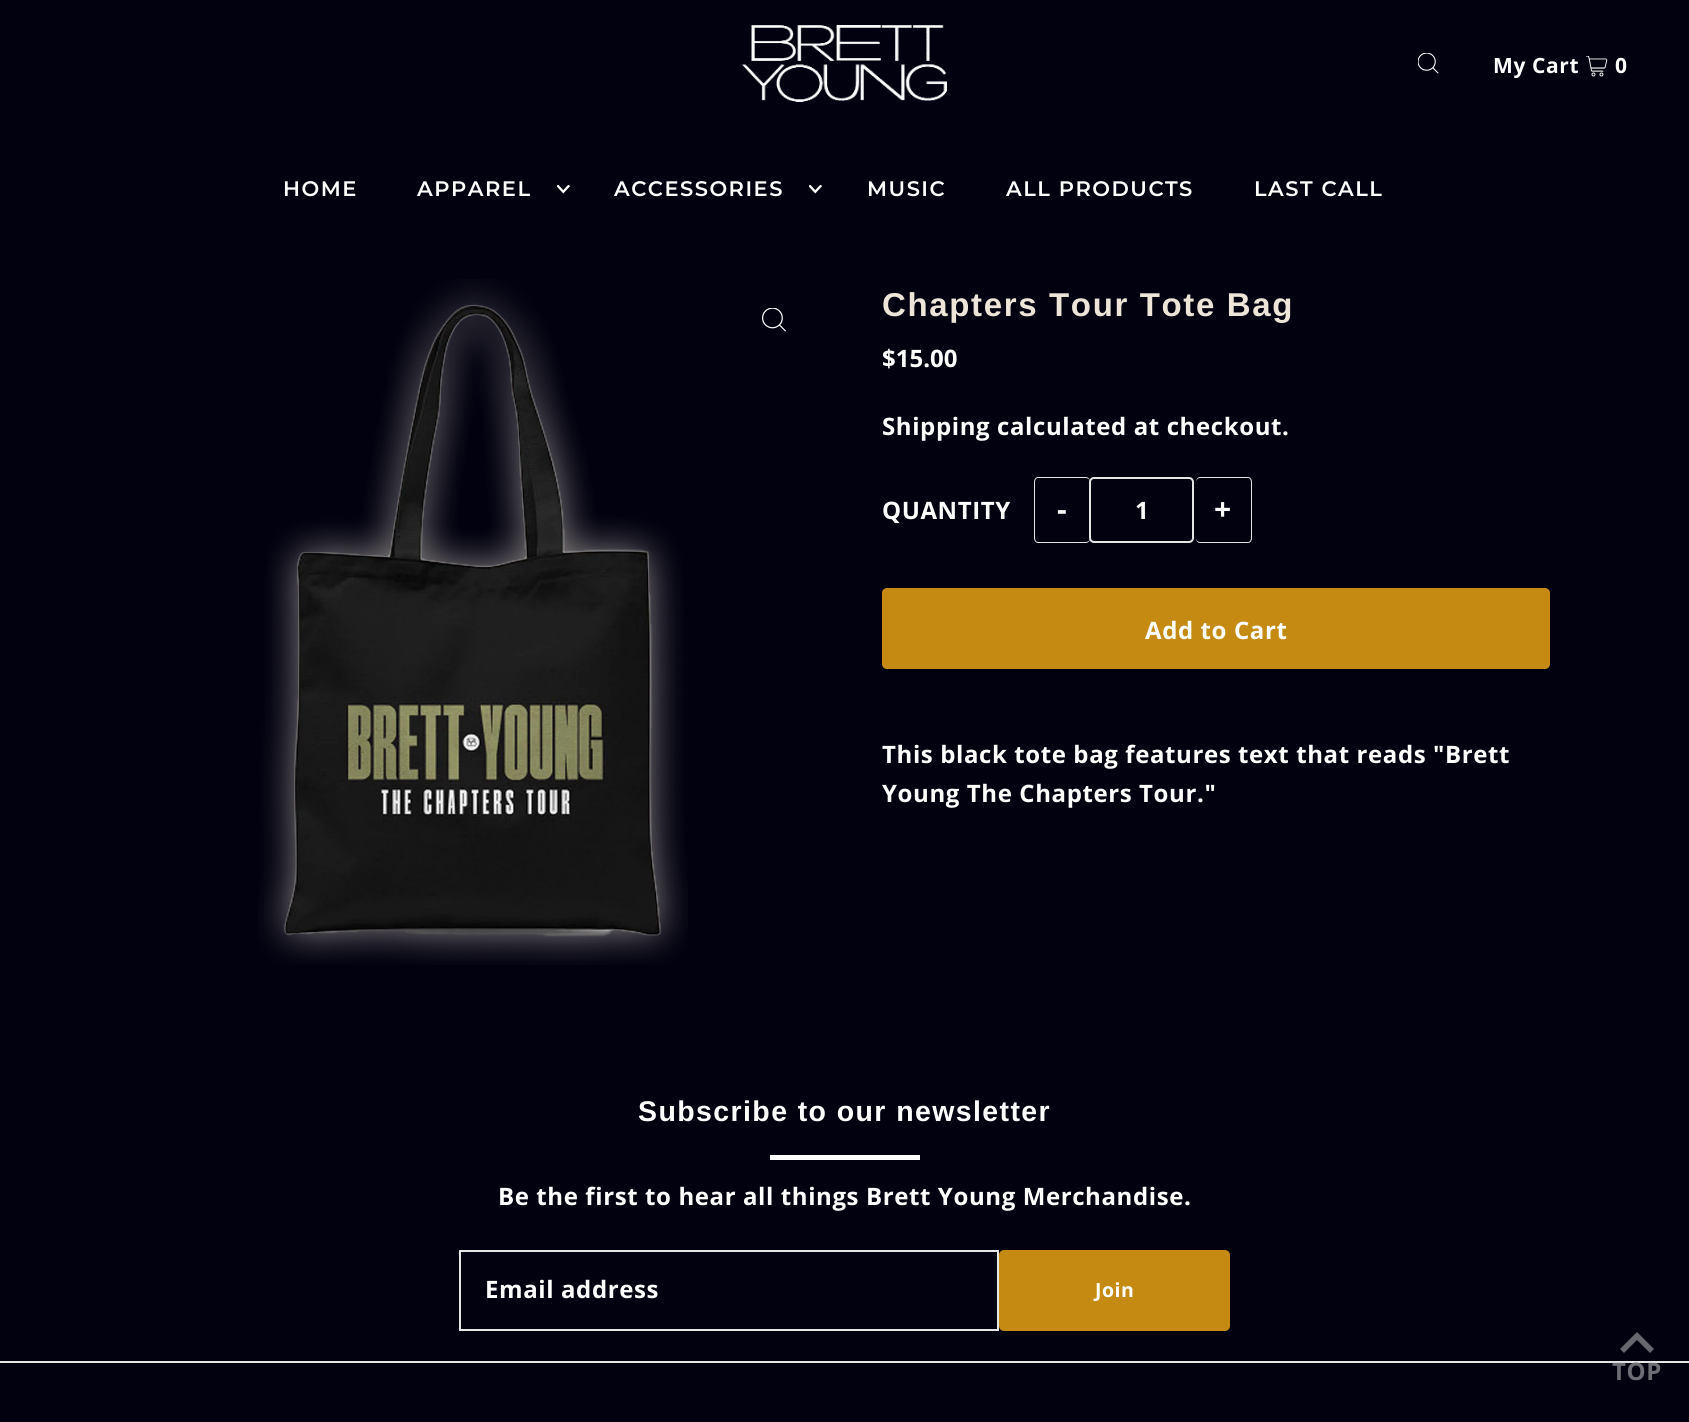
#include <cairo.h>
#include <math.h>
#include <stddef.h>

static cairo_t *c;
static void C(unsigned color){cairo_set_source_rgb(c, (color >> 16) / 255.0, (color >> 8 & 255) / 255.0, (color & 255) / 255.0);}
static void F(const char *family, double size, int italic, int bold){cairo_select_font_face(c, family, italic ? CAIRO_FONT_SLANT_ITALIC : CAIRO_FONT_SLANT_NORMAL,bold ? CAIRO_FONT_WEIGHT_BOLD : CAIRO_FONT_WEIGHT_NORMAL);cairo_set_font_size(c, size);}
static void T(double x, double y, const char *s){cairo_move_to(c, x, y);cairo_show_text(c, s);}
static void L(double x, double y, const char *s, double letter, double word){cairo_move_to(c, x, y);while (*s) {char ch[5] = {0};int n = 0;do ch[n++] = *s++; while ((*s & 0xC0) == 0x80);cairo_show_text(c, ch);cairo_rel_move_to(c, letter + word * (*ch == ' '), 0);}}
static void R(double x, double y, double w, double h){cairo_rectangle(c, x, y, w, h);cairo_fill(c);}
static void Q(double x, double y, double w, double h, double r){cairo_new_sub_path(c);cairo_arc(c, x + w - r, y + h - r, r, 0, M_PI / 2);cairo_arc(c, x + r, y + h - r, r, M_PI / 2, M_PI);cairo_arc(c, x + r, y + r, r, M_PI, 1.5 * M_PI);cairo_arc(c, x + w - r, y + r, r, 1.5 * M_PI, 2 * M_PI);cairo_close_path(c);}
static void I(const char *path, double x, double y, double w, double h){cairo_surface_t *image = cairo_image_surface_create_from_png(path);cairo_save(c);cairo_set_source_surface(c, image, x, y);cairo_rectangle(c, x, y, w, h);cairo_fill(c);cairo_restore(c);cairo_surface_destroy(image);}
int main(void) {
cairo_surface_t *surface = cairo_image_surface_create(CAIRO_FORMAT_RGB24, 1689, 1422);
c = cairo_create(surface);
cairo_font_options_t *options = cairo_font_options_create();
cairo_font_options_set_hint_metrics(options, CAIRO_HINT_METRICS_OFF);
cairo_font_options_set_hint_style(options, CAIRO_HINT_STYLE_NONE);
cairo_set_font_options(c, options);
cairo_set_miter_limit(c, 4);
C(0x01010f);
cairo_paint(c);
I("1.png",742,25,205,77);
I("2.png",1418,53,21,21);
F("Open Sans",21,0,1);
C(0xffffff);
L(1493,73,"My Cart",.6,0);
I("3.png",1586,56,22,21);
L(1615,73,"0",.6,0);
F("Montserrat SemiBold",21,0,0);
L(283,196,"HOME",1.5,0);
L(417,196,"APPAREL",1.5,0);
I("4.png",557,185,13,9);
L(614,196,"ACCESSORIES",1.5,0);
I("4.png",809,185,13,9);
L(867,196,"MUSIC",1.5,0);
L(1006,196,"ALL PRODUCTS",1.5,0);
L(1254,196,"LAST CALL",1.5,0);
I("5.png",258,279,430,686);
I("6.png",762,308,24,24);
F("Liberation Sans",33,0,1);
C(0xede6d8);
L(882,316,"Chapters Tour Tote Bag",1.65,0);
F("Open Sans",24,0,1);
C(0xffffff);
T(882,367,"$15.00");
L(882,435,"Shipping calculated at checkout.",.6,0);
L(882,519,"QUANTITY",.6,0);
C(0xe5e5e5);
cairo_set_fill_rule(c,CAIRO_FILL_RULE_EVEN_ODD);
cairo_new_path(c);
cairo_move_to(c,1038,477);
cairo_line_to(c,1086,477);
cairo_curve_to(c,1088,477,1090,479,1090,482);
cairo_line_to(c,1090,538);
cairo_curve_to(c,1090,541,1088,543,1086,543);
cairo_line_to(c,1038,543);
cairo_curve_to(c,1036,543,1034,541,1034,538);
cairo_line_to(c,1034,482);
cairo_curve_to(c,1034,479,1036,477,1038,477);
cairo_close_path(c);
cairo_move_to(c,1038,478);
cairo_line_to(c,1086,478);
cairo_curve_to(c,1088,478,1090,480,1090,482);
cairo_line_to(c,1090,538);
cairo_curve_to(c,1090,540,1088,542,1086,542);
cairo_line_to(c,1038,542);
cairo_curve_to(c,1036,542,1035,540,1035,538);
cairo_line_to(c,1035,482);
cairo_curve_to(c,1035,480,1036,478,1038,478);
cairo_close_path(c);
cairo_fill(c);
F("Open Sans",30,0,1);
C(0xffffff);
L(1057,520,"-",1,0);
C(0x01010f);
Q(1090,478,103,64,4);
cairo_fill_preserve(c);
C(0xe5e5e5);
cairo_stroke(c);
F("Open Sans",24,0,1);
C(0xffffff);
L(1135,519,"1",.6,0);
C(0xe5e5e5);
cairo_new_path(c);
cairo_move_to(c,1200,477);
cairo_line_to(c,1248,477);
cairo_curve_to(c,1250,477,1252,479,1252,482);
cairo_line_to(c,1252,538);
cairo_curve_to(c,1252,541,1250,543,1248,543);
cairo_line_to(c,1200,543);
cairo_curve_to(c,1198,543,1196,541,1196,538);
cairo_line_to(c,1196,482);
cairo_curve_to(c,1196,479,1198,477,1200,477);
cairo_close_path(c);
cairo_move_to(c,1200,478);
cairo_line_to(c,1248,478);
cairo_curve_to(c,1250,478,1251,480,1251,482);
cairo_line_to(c,1251,538);
cairo_curve_to(c,1251,540,1250,542,1248,542);
cairo_line_to(c,1200,542);
cairo_curve_to(c,1198,542,1196,540,1196,538);
cairo_line_to(c,1196,482);
cairo_curve_to(c,1196,480,1198,478,1200,478);
cairo_close_path(c);
cairo_fill(c);
F("Open Sans",30,0,1);
C(0xffffff);
L(1214,520,"+",1,0);
C(0xc48a12);
Q(882,588,668,81,5);
cairo_fill(c);
F("Open Sans",24,0,1);
C(0xffffff);
L(1145,639,"Add to Cart",.6,0);
L(882,763,"This black tote bag features text that reads \"Brett",.6,0);
L(882,802,"Young The Chapters Tour.\"",.6,0);
F("Liberation Sans",28.5,0,1);
L(638,1121,"Subscribe to our newsletter",1.4,0);
R(770,1155,150,5);
F("Open Sans",24,0,1);
L(498,1205,"Be the first to hear all things Brett Young Merchandise.",.6,0);
cairo_rectangle(c,460,1251,538,79);
C(0xe5e5e5);
cairo_stroke(c);
C(0xffffff);
L(485,1298,"Email address",.6,0);
C(0xc48a12);
Q(999,1250,231,81,5);
cairo_fill(c);
F("Open Sans",19.5,0,1);
C(0xffffff);
L(1095,1297,"Join",.5,0);
C(0xe5e5e5);
R(0,1361,1689,2);
C(0x67676f);
cairo_set_fill_rule(c,CAIRO_FILL_RULE_WINDING);
cairo_new_path(c);
cairo_move_to(c,1637,1332);
cairo_line_to(c,1620,1349);
cairo_line_to(c,1624,1353);
cairo_line_to(c,1637,1340);
cairo_line_to(c,1650,1353);
cairo_line_to(c,1654,1349);
cairo_close_path(c);
cairo_fill(c);
F("Open Sans",24,0,1);
C(0x6e6e76);
L(1612,1380,"TOP",.6,0);
cairo_surface_write_to_png(surface, "o.png");
cairo_font_options_destroy(options);
cairo_destroy(c);
cairo_surface_destroy(surface);
return 0;
}
